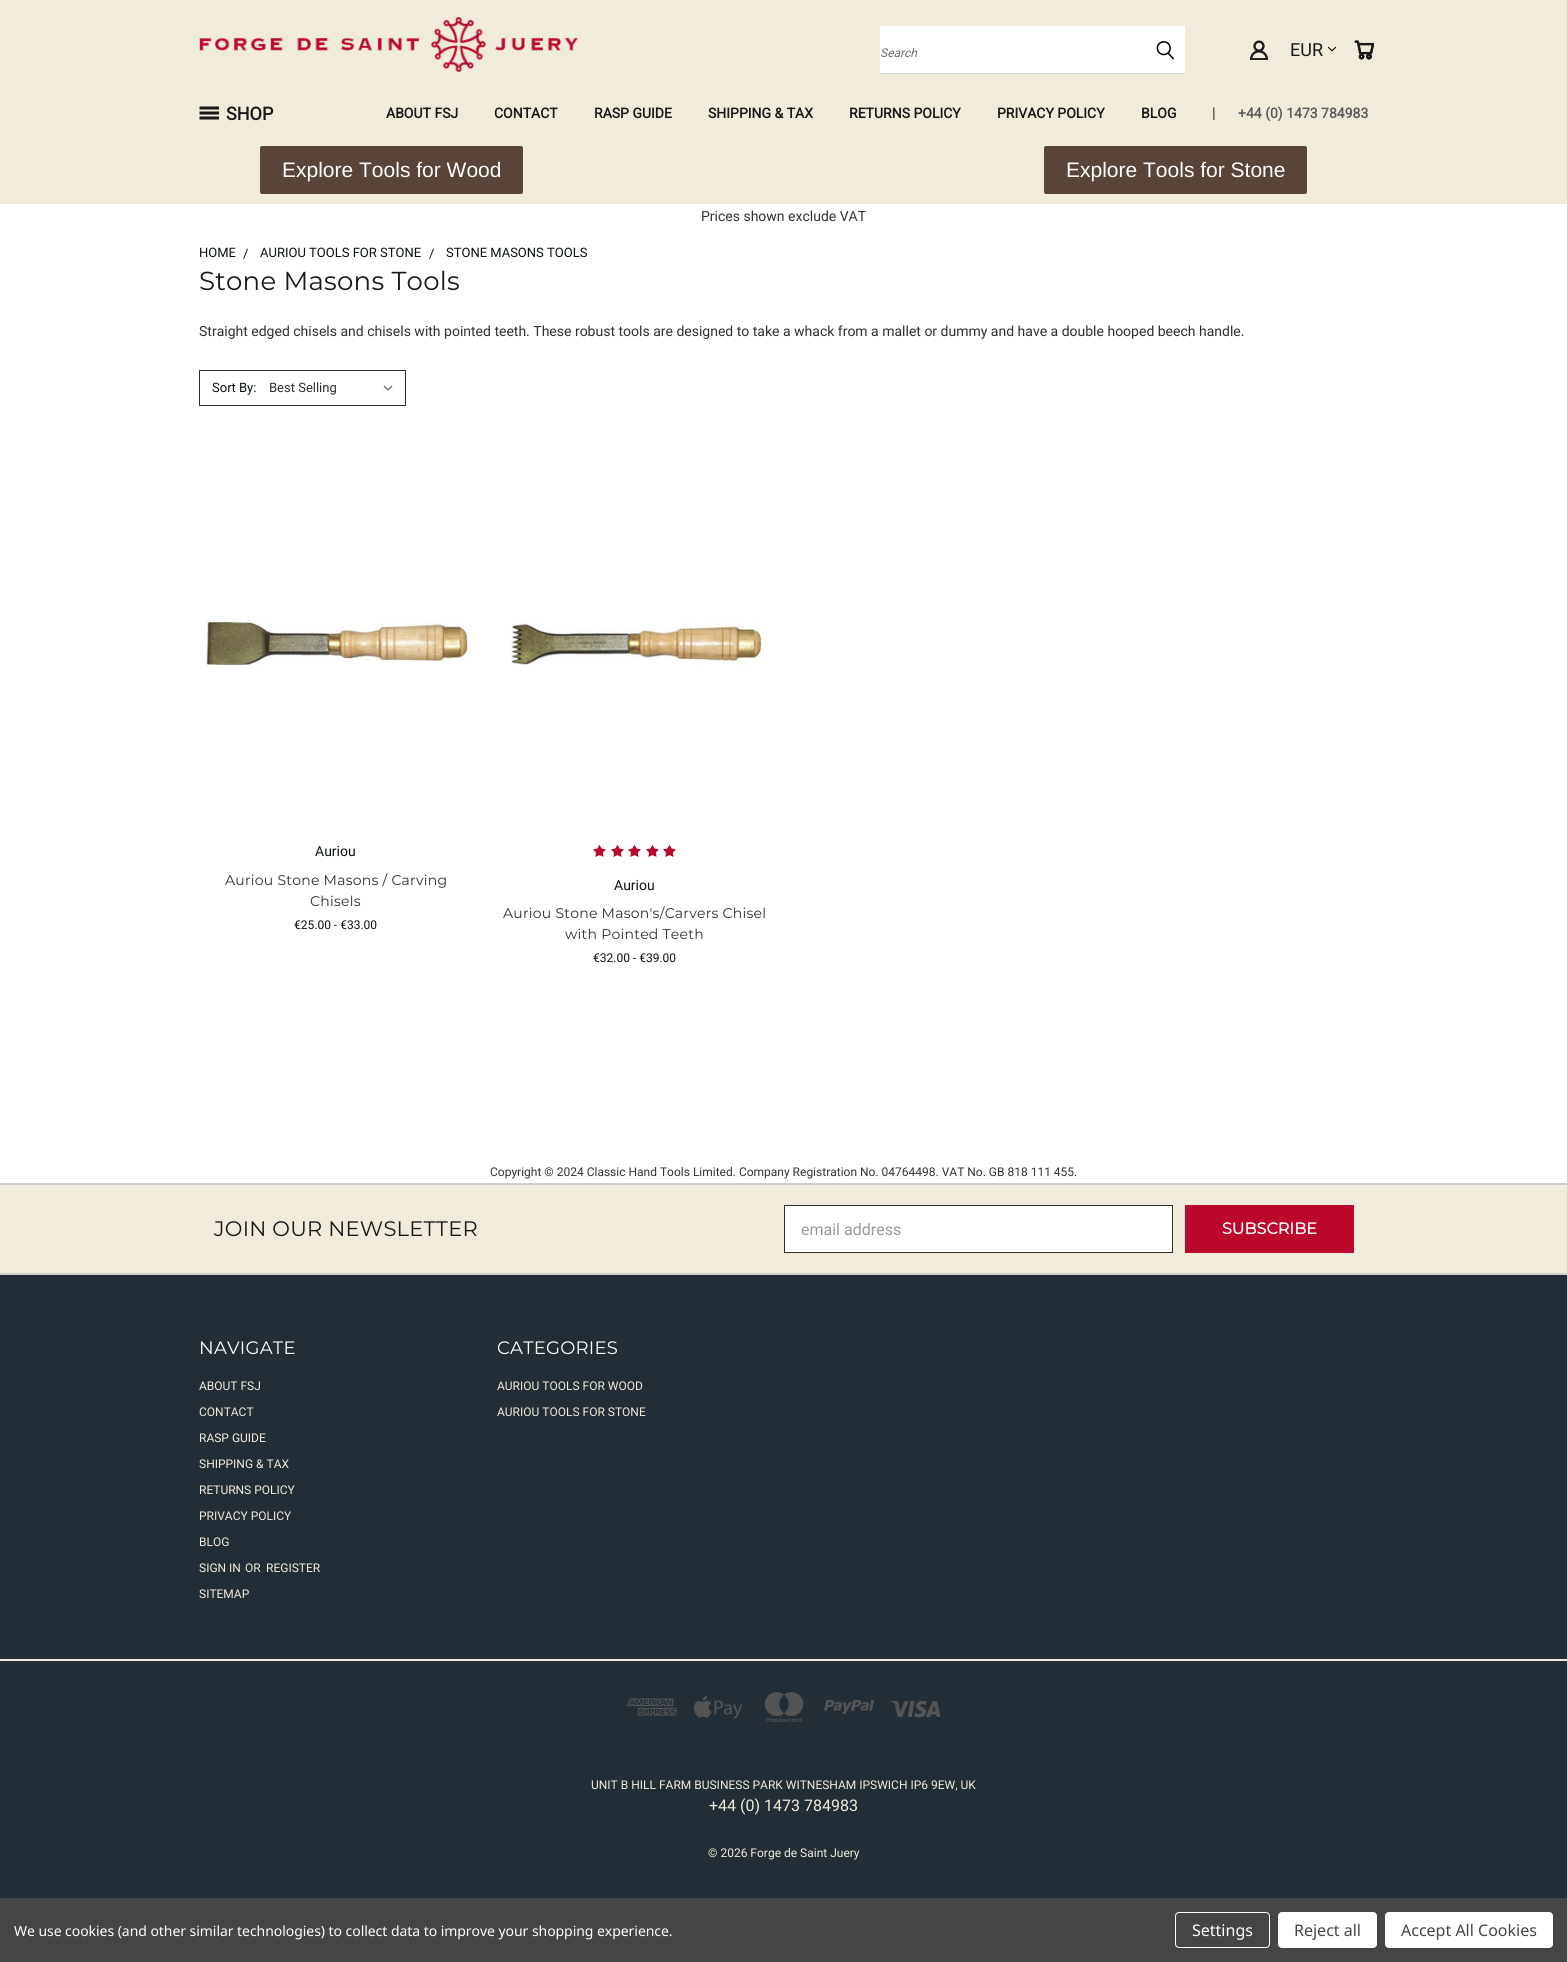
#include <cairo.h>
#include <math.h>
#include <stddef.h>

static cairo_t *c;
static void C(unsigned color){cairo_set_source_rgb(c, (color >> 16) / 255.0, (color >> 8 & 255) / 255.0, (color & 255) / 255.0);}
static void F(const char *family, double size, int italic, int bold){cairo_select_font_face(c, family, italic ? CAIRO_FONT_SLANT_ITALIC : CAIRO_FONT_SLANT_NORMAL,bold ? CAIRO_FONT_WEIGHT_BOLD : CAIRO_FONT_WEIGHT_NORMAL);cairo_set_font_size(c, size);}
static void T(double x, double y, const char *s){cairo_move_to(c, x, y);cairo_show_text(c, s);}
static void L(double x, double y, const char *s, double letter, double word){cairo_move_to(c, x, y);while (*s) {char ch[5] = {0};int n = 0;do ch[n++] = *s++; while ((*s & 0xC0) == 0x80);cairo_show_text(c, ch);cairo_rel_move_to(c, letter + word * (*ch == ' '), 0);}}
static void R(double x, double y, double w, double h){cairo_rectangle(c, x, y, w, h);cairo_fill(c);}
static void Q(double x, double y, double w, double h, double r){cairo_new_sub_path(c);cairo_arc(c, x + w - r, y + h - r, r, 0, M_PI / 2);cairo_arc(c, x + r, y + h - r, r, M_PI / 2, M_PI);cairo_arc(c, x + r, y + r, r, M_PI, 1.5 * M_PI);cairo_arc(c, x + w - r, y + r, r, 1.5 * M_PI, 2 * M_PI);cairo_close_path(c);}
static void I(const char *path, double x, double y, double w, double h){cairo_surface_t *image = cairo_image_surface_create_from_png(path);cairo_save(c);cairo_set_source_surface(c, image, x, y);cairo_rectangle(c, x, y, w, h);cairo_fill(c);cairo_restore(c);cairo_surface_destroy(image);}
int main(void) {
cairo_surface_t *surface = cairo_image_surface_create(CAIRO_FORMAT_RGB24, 1567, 1962);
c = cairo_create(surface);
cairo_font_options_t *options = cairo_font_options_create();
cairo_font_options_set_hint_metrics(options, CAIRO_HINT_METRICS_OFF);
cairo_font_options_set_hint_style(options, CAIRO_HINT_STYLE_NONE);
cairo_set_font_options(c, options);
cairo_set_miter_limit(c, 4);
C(0xffffff);
cairo_paint(c);
C(0xf1ebdb);
R(0,0,1567,204);
I("1.png",199,17,379,55);
C(0xffffff);
R(880,26,305,47);
C(0xd7d7d7);
R(880,73,305,1);
F("Roboto",12,1,0);
C(0x70706e);
T(880,57,"Search");
I("2.png",1156,41,18,19);
I("3.png",1250,40,18,20);
F("Roboto",18,0,0);
C(0x191919);
T(1290,56,"EUR");
I("4.png",1328,46,8,6);
I("5.png",1354,40,20,20);
I("6.png",199,106,20,14);
F("Roboto",18,0,1);
T(226,120,"SHOP");
F("Roboto",14,0,1);
T(386,118,"ABOUT FSJ");
T(494,118,"CONTACT");
T(594,118,"RASP GUIDE");
T(708,118,"SHIPPING & TAX");
T(849,118,"RETURNS POLICY");
T(997,118,"PRIVACY POLICY");
T(1141,118,"BLOG");
F("Roboto",15,0,0);
C(0x2f2f2b);
T(1212,118,"|");
F("Roboto",14,0,1);
C(0x5c5c5c);
T(1238,118,"+44 (0) 1473 784983");
C(0x584439);
Q(260,146,263,48,2);
cairo_fill(c);
F("Liberation Sans",21,0,0);
C(0xffffff);
T(282,177,"Explore Tools for Wood");
C(0x584439);
Q(1044,146,263,48,2);
cairo_fill(c);
C(0xffffff);
T(1066,177,"Explore Tools for Stone");
F("Roboto",14,0,0);
C(0x333333);
T(701,221,"Prices shown exclude VAT");
F("Roboto",13,0,0);
C(0x0b130f);
T(199,257,"HOME");
T(243,258,"/");
T(260,257,"AURIOU TOOLS FOR STONE");
T(429,258,"/");
T(446,257,"STONE MASONS TOOLS");
F("Montserrat Thin",26,0,0);
C(0x191919);
L(199,290,"Stone Masons Tools",.25,0);
F("Roboto",14,0,0);
C(0x2f2f2b);
T(199,336,"Straight edged chisels and chisels with pointed teeth. These robust tools are designed to take a whack from a mallet or dummy and have a double hooped beech handle.");
cairo_rectangle(c,199.5,370.5,206,35);
cairo_set_line_width(c,1);
cairo_stroke(c);
F("Roboto",13,0,0);
C(0x0b130f);
T(212,392,"Sort By:");
I("7.png",383,385,10,6);
C(0x2f2f2b);
T(269,392,"Best Selling");
I("8.png",206,616,267,52);
F("Roboto",14,0,0);
C(0x0b130f);
T(315,856,"Auriou");
F("Montserrat Thin",14,0,0);
C(0x2f2f2b);
L(225,885,"Auriou Stone Masons / Carving",.25,0);
L(310,906,"Chisels",.25,0);
F("Roboto",12,0,0);
C(0x0b130f);
T(294,929,"€25.00 - €33.00");
I("9.png",511,620,253,45);
I("10.png",593,844,13,13);
I("10.png",611,844,13,13);
I("10.png",628,844,13,13);
I("10.png",646,844,13,13);
I("10.png",663,844,13,13);
F("Roboto",14,0,0);
T(614,890,"Auriou");
F("Montserrat Thin",14,0,0);
C(0x2f2f2b);
L(503,918,"Auriou Stone Mason's/Carvers Chisel",.25,0);
L(565,939,"with Pointed Teeth",.25,0);
F("Roboto",12,0,0);
C(0x0b130f);
T(593,962,"€32.00 - €39.00");
C(0x333333);
T(490,1176,"Copyright © 2024 Classic Hand Tools Limited. Company Registration No. 04764498. VAT No. GB 818 111 455.");
C(0xf1ebdb);
R(0,1185,1567,88);
C(0xcdcccc);
R(0,1183,1567,2);
F("Montserrat Thin",21,0,0);
C(0x191919);
L(214,1236,"JOIN OUR NEWSLETTER",.25,0);
C(0xffffff);
cairo_rectangle(c,784.5,1205.5,388,47);
cairo_fill_preserve(c);
C(0x2f2f2b);
cairo_stroke(c);
F("Roboto",16,0,0);
C(0x999999);
T(801,1235,"email address");
C(0xbb082c);
R(1185,1205,169,48);
F("Montserrat",16,0,1);
C(0xffffff);
T(1222,1234,"SUBSCRIBE");
C(0x222d36);
R(0,1275,1567,623);
C(0xcdcccc);
R(0,1273,1567,2);
F("Montserrat Thin",18,0,0);
C(0xffffff);
L(199,1354,"NAVIGATE",.25,0);
F("Roboto",12,0,0);
C(0xf1ebdb);
T(199,1390,"ABOUT FSJ");
T(199,1416,"CONTACT");
T(199,1442,"RASP GUIDE");
T(199,1468,"SHIPPING & TAX");
T(199,1494,"RETURNS POLICY");
T(199,1520,"PRIVACY POLICY");
T(199,1546,"BLOG");
T(199,1572,"SIGN IN");
T(245,1572,"OR");
T(266,1572,"REGISTER");
T(199,1598,"SITEMAP");
F("Montserrat Thin",18,0,0);
C(0xffffff);
L(497,1354,"CATEGORIES",.25,0);
F("Roboto",12,0,0);
C(0xf1ebdb);
T(497,1390,"AURIOU TOOLS FOR WOOD");
T(497,1416,"AURIOU TOOLS FOR STONE");
R(0,1659,1567,2);
I("11.png",627,1698,50,18);
I("12.png",694,1695,49,24);
I("13.png",764,1692,40,30);
I("14.png",824,1700,50,14);
I("15.png",890,1700,50,18);
T(591,1789,"UNIT B HILL FARM BUSINESS PARK WITNESHAM IPSWICH IP6 9EW, UK");
F("Roboto",16,0,0);
T(709,1811,"+44 (0) 1473 784983");
F("Roboto",12,0,0);
T(708,1857,"© 2026 Forge de Saint Juery");
C(0x454545);
R(0,1898,1567,64);
F("Noto Sans",14,0,0);
C(0xffffff);
L(14,1936,"We use cookies (and other similar technologies) to collect data to improve your shopping experience.",-.05,0);
Q(1175.5,1912.5,94,35,3.5);
cairo_stroke(c);
F("Noto Sans",16,0,0);
T(1192,1936,"Settings");
Q(1278,1912,99,36,4);
cairo_fill(c);
C(0x454545);
T(1294,1936,"Reject all");
C(0xffffff);
Q(1385,1912,168,36,4);
cairo_fill(c);
C(0x454545);
T(1401,1936,"Accept All Cookies");
cairo_surface_write_to_png(surface, "o.png");
cairo_font_options_destroy(options);
cairo_destroy(c);
cairo_surface_destroy(surface);
return 0;
}
